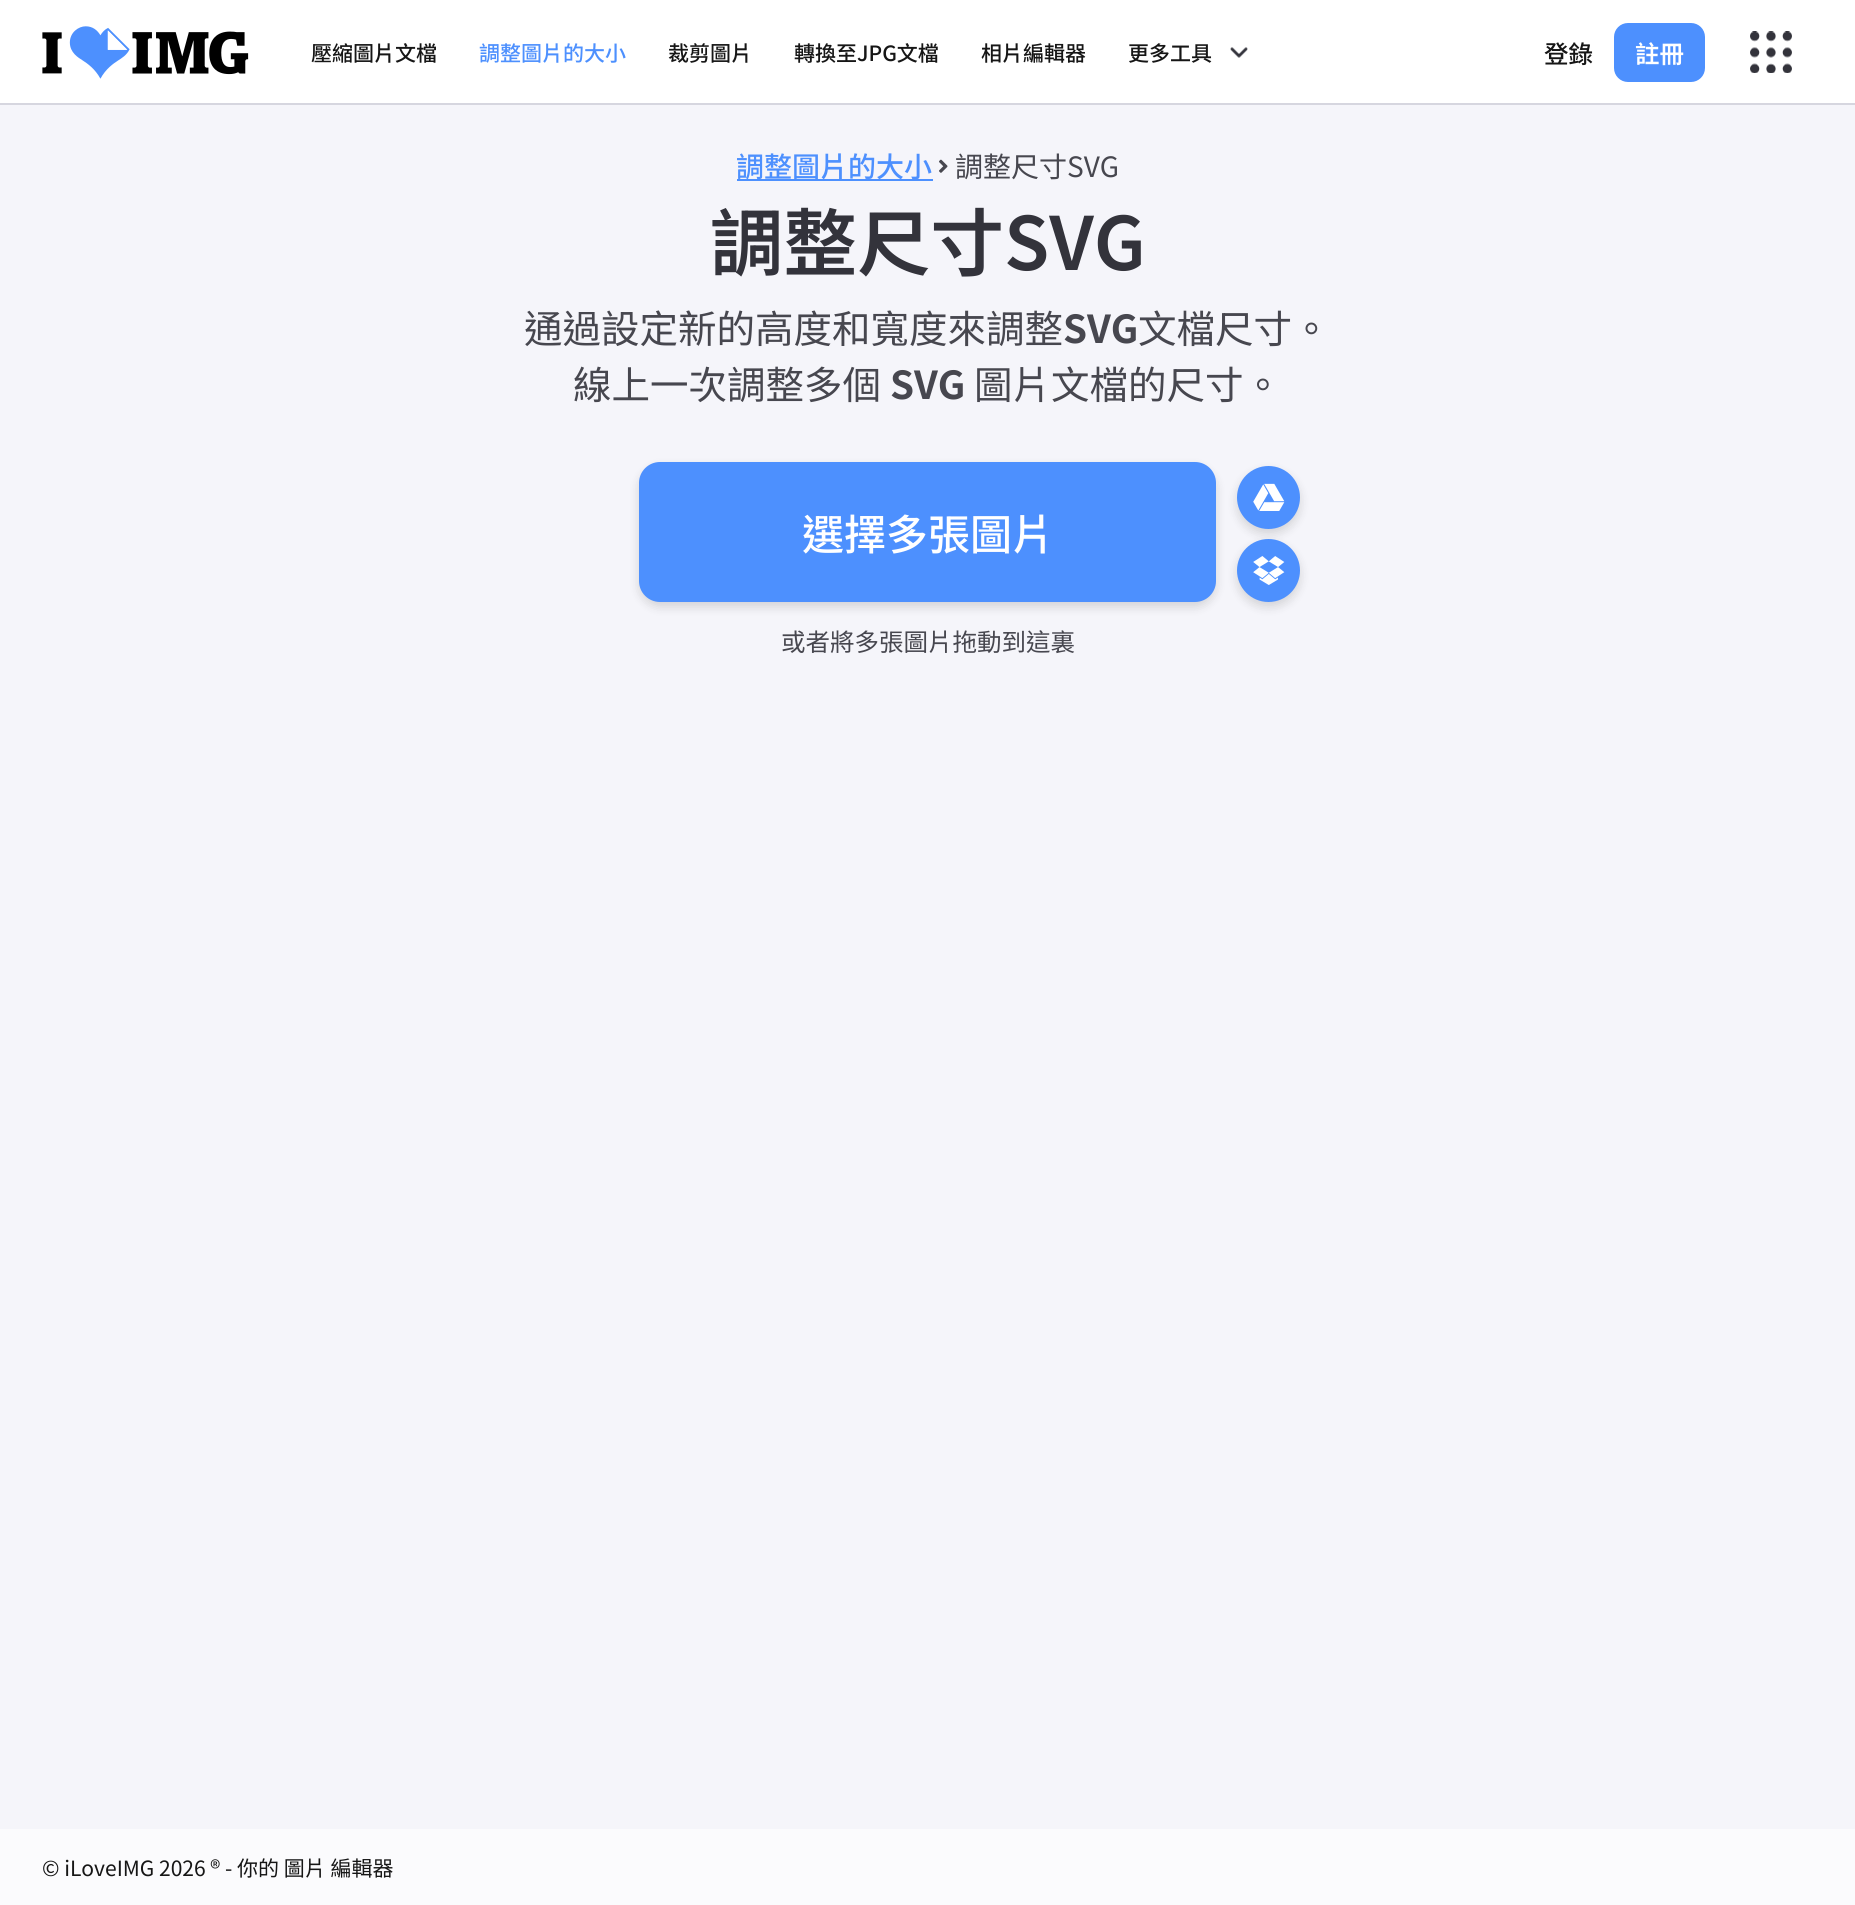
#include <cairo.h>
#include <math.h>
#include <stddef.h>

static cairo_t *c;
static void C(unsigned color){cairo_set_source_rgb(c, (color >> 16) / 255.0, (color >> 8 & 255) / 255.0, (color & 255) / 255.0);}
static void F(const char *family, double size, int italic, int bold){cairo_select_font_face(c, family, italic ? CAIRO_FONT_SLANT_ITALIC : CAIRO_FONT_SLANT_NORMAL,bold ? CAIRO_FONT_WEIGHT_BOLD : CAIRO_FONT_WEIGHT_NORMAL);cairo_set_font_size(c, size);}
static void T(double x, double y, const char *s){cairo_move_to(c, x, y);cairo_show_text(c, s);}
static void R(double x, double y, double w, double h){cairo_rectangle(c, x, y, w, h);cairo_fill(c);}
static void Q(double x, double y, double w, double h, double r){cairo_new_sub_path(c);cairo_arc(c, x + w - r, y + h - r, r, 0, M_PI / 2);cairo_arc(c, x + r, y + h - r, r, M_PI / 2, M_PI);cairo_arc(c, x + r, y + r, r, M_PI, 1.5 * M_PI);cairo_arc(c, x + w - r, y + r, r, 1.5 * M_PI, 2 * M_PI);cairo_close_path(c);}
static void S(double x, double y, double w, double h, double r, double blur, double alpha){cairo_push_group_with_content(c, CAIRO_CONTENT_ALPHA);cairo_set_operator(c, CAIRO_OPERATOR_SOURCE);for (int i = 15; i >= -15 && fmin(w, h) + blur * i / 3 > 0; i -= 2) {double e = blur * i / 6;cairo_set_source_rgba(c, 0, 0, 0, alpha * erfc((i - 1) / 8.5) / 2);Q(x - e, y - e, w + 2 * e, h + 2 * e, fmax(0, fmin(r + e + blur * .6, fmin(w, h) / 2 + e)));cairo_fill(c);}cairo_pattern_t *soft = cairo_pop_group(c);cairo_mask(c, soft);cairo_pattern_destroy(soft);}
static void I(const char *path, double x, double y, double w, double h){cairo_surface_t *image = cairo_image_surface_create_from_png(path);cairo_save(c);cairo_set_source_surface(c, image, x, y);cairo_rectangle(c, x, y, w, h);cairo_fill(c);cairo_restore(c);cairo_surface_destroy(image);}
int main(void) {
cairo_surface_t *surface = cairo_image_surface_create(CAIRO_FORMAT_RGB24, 1855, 1905);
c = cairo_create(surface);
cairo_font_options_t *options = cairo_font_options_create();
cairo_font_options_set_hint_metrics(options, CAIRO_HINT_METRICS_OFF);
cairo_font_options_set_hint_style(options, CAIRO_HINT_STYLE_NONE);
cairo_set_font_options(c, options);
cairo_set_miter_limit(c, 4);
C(0xf5f5fa);
cairo_paint(c);
C(0xffffff);
R(0,0,1855,103);
C(0xd6d6df);
R(0,103,1855,2);
I("1.png",42,26,207,53);
F("Noto Sans TC Medium",21,0,0);
C(0x161616);
T(311,61,"壓縮圖片文檔");
C(0x4d90fe);
T(479,61,"調整圖片的大小");
C(0x161616);
T(668,61,"裁剪圖片");
T(794,61,"轉換至JPG文檔");
T(981,61,"相片編輯器");
T(1128,61,"更多工具");
I("2.png",1230,47,18,11);
F("Noto Sans TC Medium",24.5,0,0);
T(1544,63,"登錄");
C(0x4d90fe);
Q(1614,23,91,59,14);
cairo_fill(c);
F("Noto Sans TC SemiBold",24.5,0,0);
C(0xffffff);
T(1635,63,"註冊");
I("3.png",1750,31,42,42);
C(0x4d90fe);
R(737,179,196,2);
F("Noto Sans TC Medium",28,0,0);
T(736,177,"調整圖片的大小");
I("4.png",939,159,9,14);
F("Noto Sans TC",28,0,0);
C(0x47474f);
T(955,177,"調整尺寸SVG");
F("Noto Sans TC SemiBold",73.5,0,0);
C(0x33333b);
T(710,270,"調整尺寸SVG");
F("Noto Sans TC",38.5,0,0);
C(0x47474f);
T(524,343,"通過設定新的高度和寬度來調整");
F("Noto Sans TC",38.5,0,1);
T(1063,343,"SVG");
F("Noto Sans TC",38.5,0,0);
T(1138,343,"文檔尺寸。");
T(573,399,"線上一次調整多個");
F("Noto Sans TC",38.5,0,1);
T(890,399,"SVG");
F("Noto Sans TC",38.5,0,0);
T(974,399,"圖片文檔的尺寸。");
C(0x000000);
S(639,467,577,140,21,5,.14);
C(0x4d90fe);
Q(639,462,577,140,21);
cairo_fill(c);
F("Noto Sans TC Medium",42,0,0);
C(0xffffff);
T(802,550,"選擇多張圖片");
C(0x000000);
S(1237,471,63,63,31.5,5,.14);
C(0x4d90fe);
cairo_arc(c,1268.5,497.5,31.5,0,2 * M_PI);
cairo_fill(c);
I("5.png",1253,483,32,28);
C(0x000000);
S(1237,544,63,63,31.5,5,.14);
C(0x4d90fe);
cairo_arc(c,1268.5,570.5,31.5,0,2 * M_PI);
cairo_fill(c);
I("6.png",1253,556,32,29);
F("Noto Sans TC",24.5,0,0);
C(0x47474f);
T(781,651,"或者將多張圖片拖動到這裏");
C(0xfbfbfd);
R(0,1829,1855,76);
F("Noto Sans TC",21,0,0);
C(0x161616);
T(42,1876,"© iLoveIMG 2026 ® - 你的 圖片 編輯器");
cairo_surface_write_to_png(surface, "o.png");
cairo_font_options_destroy(options);
cairo_destroy(c);
cairo_surface_destroy(surface);
return 0;
}
